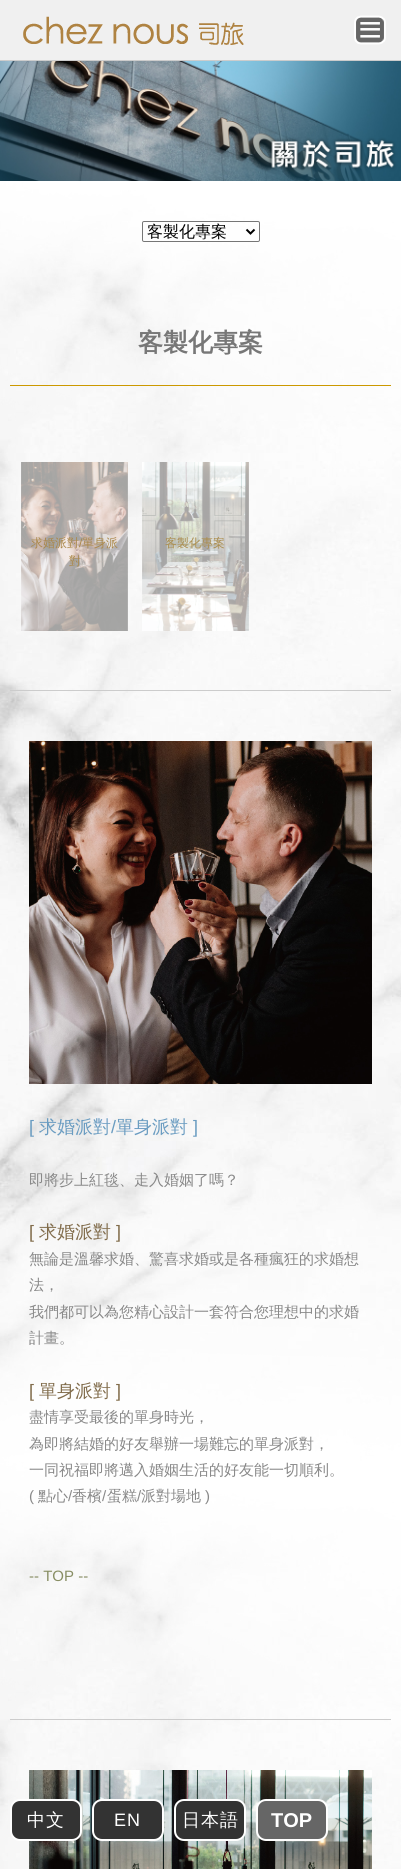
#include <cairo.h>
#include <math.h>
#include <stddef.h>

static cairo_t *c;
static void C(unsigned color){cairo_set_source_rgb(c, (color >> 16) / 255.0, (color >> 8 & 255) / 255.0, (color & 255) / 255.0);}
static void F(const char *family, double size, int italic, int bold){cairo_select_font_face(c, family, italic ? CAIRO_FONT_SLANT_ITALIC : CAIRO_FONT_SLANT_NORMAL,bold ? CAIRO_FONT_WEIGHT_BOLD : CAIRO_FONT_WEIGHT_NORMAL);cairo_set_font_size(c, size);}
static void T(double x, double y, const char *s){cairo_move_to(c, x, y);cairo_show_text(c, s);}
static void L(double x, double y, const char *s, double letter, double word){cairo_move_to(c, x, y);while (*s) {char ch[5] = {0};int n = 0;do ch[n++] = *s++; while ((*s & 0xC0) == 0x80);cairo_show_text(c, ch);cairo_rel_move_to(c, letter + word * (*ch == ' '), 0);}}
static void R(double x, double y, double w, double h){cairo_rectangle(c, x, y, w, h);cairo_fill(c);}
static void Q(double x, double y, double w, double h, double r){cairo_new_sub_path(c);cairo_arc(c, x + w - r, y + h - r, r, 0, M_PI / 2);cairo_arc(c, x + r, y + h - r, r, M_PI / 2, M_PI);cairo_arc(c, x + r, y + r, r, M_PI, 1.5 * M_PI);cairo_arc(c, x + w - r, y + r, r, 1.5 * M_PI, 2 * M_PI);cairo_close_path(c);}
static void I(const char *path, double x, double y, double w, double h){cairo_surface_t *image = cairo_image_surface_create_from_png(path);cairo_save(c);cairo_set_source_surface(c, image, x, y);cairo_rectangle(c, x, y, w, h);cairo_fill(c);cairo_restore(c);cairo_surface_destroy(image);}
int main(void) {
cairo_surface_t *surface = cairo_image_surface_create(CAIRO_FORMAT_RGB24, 401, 1869);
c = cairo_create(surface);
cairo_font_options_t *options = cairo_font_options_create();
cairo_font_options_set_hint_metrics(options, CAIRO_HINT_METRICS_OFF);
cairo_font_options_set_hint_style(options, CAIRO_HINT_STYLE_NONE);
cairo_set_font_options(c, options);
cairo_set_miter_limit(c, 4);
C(0xffffff);
cairo_paint(c);
C(0xf0f0f0);
R(0,0,401,60);
C(0xcccccc);
R(0,60,401,1);
I("1.png",23,16,221,29);
I("2.png",354,15,32,30);
I("3.png",0,61,401,120);
I("4.png",0,181,401,1688);
Q(142.5,221.5,117,20,1.5);
C(0x767676);
cairo_set_line_width(c,1);
cairo_stroke(c);
cairo_new_path(c);
cairo_move_to(c,246.5,229.5);
cairo_line_to(c,250.5,233.5);
cairo_line_to(c,254.5,229.5);
C(0x000000);
cairo_set_line_width(c,2);
cairo_stroke(c);
F("WenQuanYi Zen Hei Medium",16,0,0);
T(147,237,"客製化專案");
F("WenQuanYi Zen Hei",25,0,1);
C(0x777777);
T(138,351,"客製化專案");
C(0xcc9900);
R(10,385,381,1);
I("5.png",21,462,107,169);
F("WenQuanYi Zen Hei Medium",12,0,0);
C(0xaa8748);
T(31,547,"求婚派對");
F("Liberation Sans",12,0,0);
T(79,547,"/");
F("WenQuanYi Zen Hei Medium",12,0,0);
T(82,547,"單身派");
T(69,565,"對");
I("6.png",142,462,107,169);
C(0xab8d4d);
T(165,547,"客製化專案");
C(0xcccccc);
R(10,690,381,1);
I("7.png",29,741,343,343);
F("Liberation Sans",18,0,0);
C(0x6a9cc1);
T(29,1133,"[");
F("WenQuanYi Zen Hei Medium",18,0,0);
T(39,1133,"求婚派對");
F("Liberation Sans",18,0,0);
T(111,1133,"/");
F("WenQuanYi Zen Hei Medium",18,0,0);
T(116,1133,"單身派對");
F("Liberation Sans",18,0,0);
T(193,1133,"]");
F("WenQuanYi Zen Hei Medium",15,0,0);
C(0x888888);
T(29,1185,"即將步上紅毯、走入婚姻了嗎？");
F("Liberation Sans",18,0,0);
C(0x816c4b);
T(29,1238,"[");
F("WenQuanYi Zen Hei Medium",18,0,0);
T(39,1238,"求婚派對");
F("Liberation Sans",18,0,0);
T(116,1238,"]");
F("WenQuanYi Zen Hei Medium",15,0,0);
C(0x888888);
T(29,1264,"無論是溫馨求婚、驚喜求婚或是各種瘋狂的求婚想");
T(29,1290,"法，");
T(29,1317,"我們都可以為您精心設計一套符合您理想中的求婚");
T(29,1343,"計畫。");
F("Liberation Sans",18,0,0);
C(0x816c4b);
T(29,1397,"[");
F("WenQuanYi Zen Hei Medium",18,0,0);
T(39,1397,"單身派對");
F("Liberation Sans",18,0,0);
T(116,1397,"]");
F("WenQuanYi Zen Hei Medium",15,0,0);
C(0x888888);
T(29,1422,"盡情享受最後的單身時光，");
T(29,1449,"為即將結婚的好友舉辦一場難忘的單身派對，");
T(29,1475,"一同祝福即將邁入婚姻生活的好友能一切順利。");
F("Liberation Sans",15,0,0);
T(29,1501,"(");
F("WenQuanYi Zen Hei Medium",15,0,0);
T(38,1501,"點心");
F("Liberation Sans",15,0,0);
T(68,1501,"/");
F("WenQuanYi Zen Hei Medium",15,0,0);
T(72,1501,"香檳");
F("Liberation Sans",15,0,0);
T(102,1501,"/");
F("WenQuanYi Zen Hei Medium",15,0,0);
T(107,1501,"蛋糕");
F("Liberation Sans",15,0,0);
T(137,1501,"/");
F("WenQuanYi Zen Hei Medium",15,0,0);
T(141,1501,"派對場地");
F("Liberation Sans",15,0,0);
T(205,1501,")");
C(0x888e64);
T(29,1581,"-- TOP --");
C(0xcccccc);
R(10,1719,381,1);
I("8.png",29,1770,343,99);
C(0x333333);
Q(11,1800,70,40,9);
cairo_fill_preserve(c);
C(0xffffff);
cairo_stroke(c);
F("WenQuanYi Zen Hei Medium",18,0,0);
L(27,1826,"中文",1,0);
C(0x333333);
Q(93,1800,70,40,9);
cairo_fill_preserve(c);
C(0xffffff);
cairo_stroke(c);
F("Liberation Sans",18,0,0);
L(114,1826,"EN",1,0);
C(0x333333);
Q(175,1800,70,40,9);
cairo_fill_preserve(c);
C(0xffffff);
cairo_stroke(c);
F("WenQuanYi Zen Hei Medium",18,0,0);
L(182,1826,"日本語",1,0);
C(0x666666);
Q(257,1800,70,40,9);
cairo_fill_preserve(c);
C(0xffffff);
cairo_stroke(c);
F("Liberation Sans",20,0,1);
T(271,1827,"TOP");
cairo_surface_write_to_png(surface, "o.png");
cairo_font_options_destroy(options);
cairo_destroy(c);
cairo_surface_destroy(surface);
return 0;
}
